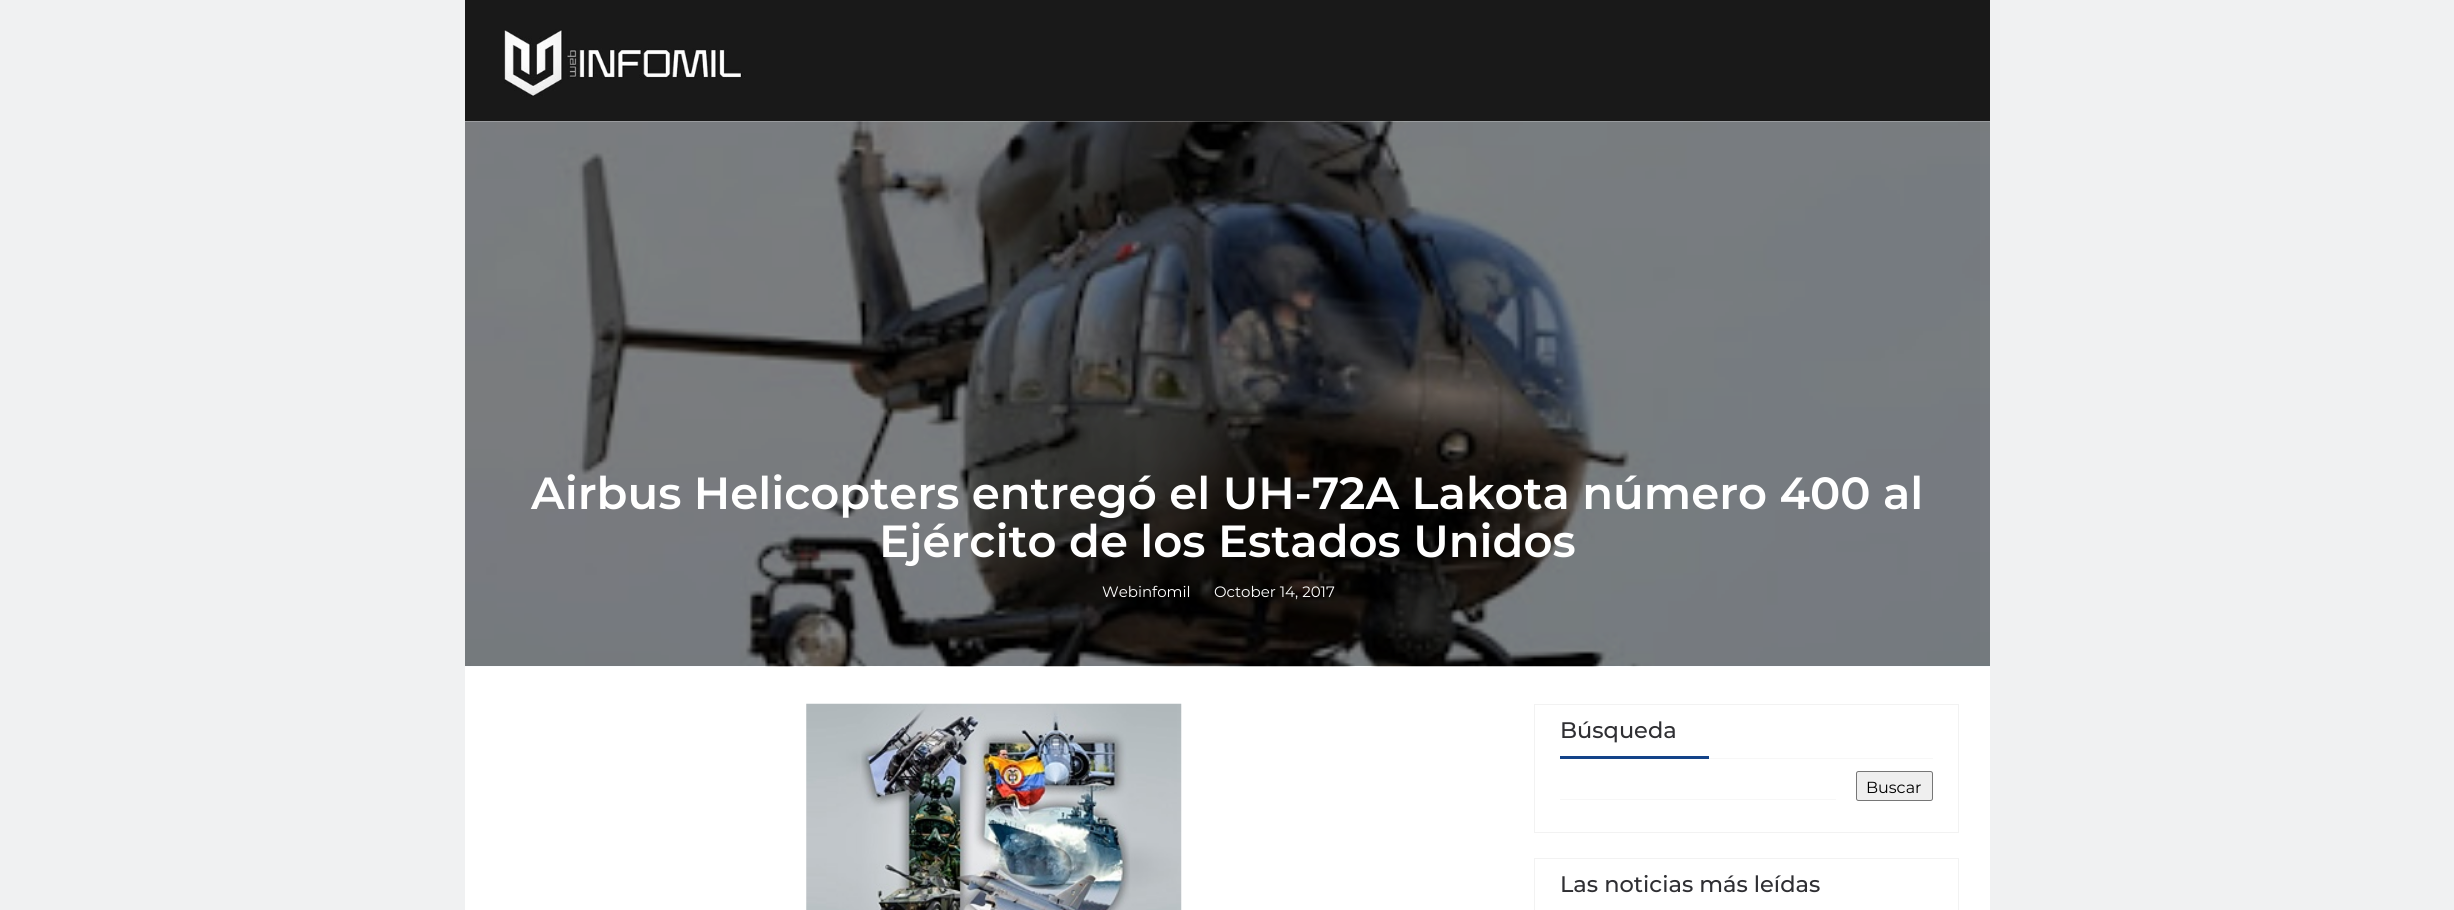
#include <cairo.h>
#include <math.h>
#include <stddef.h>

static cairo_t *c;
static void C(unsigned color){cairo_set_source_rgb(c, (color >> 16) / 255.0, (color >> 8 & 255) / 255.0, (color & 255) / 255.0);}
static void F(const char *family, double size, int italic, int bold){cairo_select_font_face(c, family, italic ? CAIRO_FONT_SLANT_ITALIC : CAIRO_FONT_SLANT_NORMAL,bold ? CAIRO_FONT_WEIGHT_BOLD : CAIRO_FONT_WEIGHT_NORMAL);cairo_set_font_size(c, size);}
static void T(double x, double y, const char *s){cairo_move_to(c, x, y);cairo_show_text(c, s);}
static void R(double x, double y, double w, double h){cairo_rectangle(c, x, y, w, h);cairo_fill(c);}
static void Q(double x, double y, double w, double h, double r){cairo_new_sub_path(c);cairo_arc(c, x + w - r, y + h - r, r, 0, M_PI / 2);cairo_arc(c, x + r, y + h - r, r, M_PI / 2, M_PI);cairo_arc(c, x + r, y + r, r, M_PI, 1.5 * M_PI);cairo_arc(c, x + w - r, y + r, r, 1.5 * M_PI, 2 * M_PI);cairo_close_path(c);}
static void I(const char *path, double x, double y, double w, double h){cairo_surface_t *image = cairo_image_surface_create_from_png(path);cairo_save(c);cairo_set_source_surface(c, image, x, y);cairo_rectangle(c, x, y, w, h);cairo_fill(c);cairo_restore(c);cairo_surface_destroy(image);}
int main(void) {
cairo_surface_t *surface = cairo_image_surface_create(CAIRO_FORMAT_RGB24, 2454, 910);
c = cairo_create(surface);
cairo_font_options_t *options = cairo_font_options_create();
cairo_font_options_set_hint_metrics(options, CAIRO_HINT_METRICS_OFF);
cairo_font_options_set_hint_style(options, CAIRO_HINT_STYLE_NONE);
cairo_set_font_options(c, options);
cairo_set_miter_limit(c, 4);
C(0xf0f1f2);
cairo_paint(c);
C(0xffffff);
R(465,121,1525,789);
C(0x191919);
R(465,0,1525,121);
I("1.png",504,29,241,68);
I("2.png",465,121,1525,546);
F("Montserrat SemiBold",45,0,0);
C(0xffffff);
T(531,509,"Airbus Helicopters entregó el UH-72A Lakota número 400 al");
T(879,557,"Ejército de los Estados Unidos");
F("Montserrat",15,0,0);
T(1102,597,"Webinfomil");
T(1214,597,"October 14, 2017");
I("3.png",806,703,376,207);
cairo_rectangle(c,1534.5,704.5,424,128);
C(0xf2f2f2);
cairo_set_line_width(c,1);
cairo_stroke(c);
C(0xf7f7f7);
R(1709,758,224,1);
F("Montserrat Medium",22.5,0,0);
C(0x2f2f33);
T(1560,738,"Búsqueda");
C(0x134389);
R(1560,756,149,3);
C(0xefefef);
Q(1856.5,771.5,76,29,2);
cairo_fill_preserve(c);
C(0x767676);
cairo_stroke(c);
F("Montserrat",16,0,0);
C(0x000000);
T(1866,793,"Buscar");
C(0xf7f7f7);
R(1560,799,276,1);
cairo_rectangle(c,1534.5,858.5,424,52);
C(0xf2f2f2);
cairo_stroke(c);
F("Montserrat Medium",22.5,0,0);
C(0x2f2f33);
T(1560,892,"Las noticias más leídas");
cairo_surface_write_to_png(surface, "o.png");
cairo_font_options_destroy(options);
cairo_destroy(c);
cairo_surface_destroy(surface);
return 0;
}
